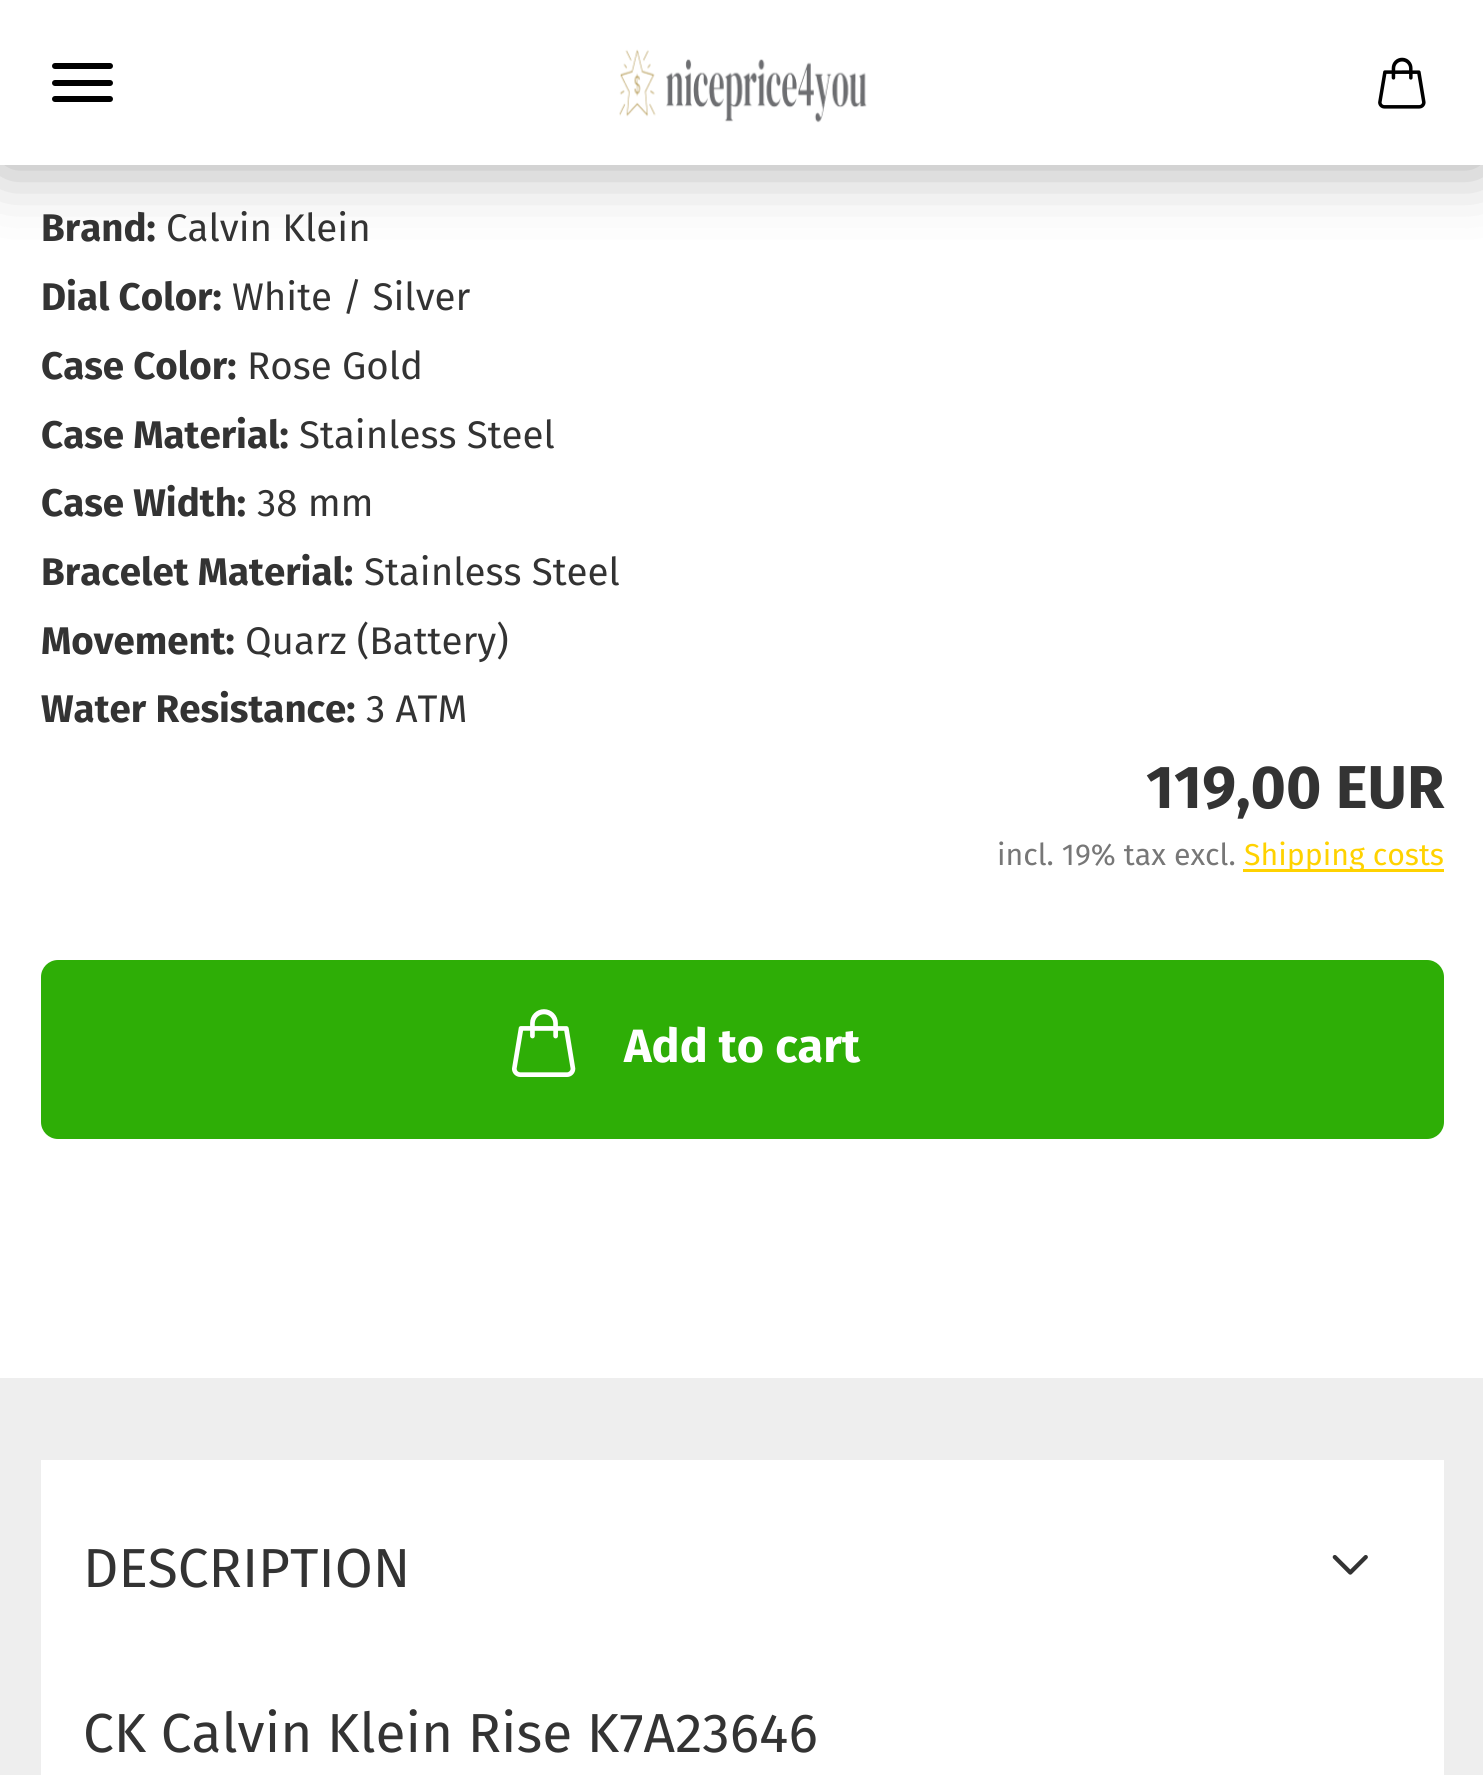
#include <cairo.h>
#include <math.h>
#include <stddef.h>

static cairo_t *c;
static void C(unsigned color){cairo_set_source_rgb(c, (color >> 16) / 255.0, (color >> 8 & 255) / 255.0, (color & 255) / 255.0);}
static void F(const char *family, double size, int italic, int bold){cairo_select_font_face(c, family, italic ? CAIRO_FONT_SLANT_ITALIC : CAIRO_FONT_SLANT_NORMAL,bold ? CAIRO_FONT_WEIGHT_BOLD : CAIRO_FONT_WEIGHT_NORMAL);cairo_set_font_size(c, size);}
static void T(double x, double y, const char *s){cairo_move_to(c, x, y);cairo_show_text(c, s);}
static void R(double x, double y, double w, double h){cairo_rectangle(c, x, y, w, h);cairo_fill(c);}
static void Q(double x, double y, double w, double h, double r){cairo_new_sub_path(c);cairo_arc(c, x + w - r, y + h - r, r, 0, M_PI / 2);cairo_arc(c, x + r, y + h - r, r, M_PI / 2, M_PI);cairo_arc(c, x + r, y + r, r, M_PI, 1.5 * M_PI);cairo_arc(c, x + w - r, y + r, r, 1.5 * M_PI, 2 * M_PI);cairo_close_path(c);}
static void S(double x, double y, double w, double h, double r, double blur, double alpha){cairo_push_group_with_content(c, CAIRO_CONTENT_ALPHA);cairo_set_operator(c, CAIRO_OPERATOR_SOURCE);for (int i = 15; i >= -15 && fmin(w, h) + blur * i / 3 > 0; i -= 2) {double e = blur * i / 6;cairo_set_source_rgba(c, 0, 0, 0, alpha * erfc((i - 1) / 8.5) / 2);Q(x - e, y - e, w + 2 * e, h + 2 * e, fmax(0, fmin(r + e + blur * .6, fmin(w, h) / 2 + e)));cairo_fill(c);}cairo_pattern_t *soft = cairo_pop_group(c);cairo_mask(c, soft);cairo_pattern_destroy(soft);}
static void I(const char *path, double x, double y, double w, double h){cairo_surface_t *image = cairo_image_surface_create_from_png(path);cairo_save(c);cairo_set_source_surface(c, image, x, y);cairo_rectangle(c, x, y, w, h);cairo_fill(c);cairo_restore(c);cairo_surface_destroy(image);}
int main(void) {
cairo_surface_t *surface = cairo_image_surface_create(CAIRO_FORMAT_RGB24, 1483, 1775);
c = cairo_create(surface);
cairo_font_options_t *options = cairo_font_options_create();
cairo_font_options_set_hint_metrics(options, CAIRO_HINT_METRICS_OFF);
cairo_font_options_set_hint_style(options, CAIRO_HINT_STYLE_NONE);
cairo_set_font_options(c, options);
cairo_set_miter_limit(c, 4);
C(0xffffff);
cairo_paint(c);
C(0x000000);
S(0,0,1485,165,0,34.5,.35);
C(0xffffff);
R(0,0,1483,165);
I("1.png",619,49,248,74);
I("2.png",1378,57,48,52);
C(0x000000);
Q(52,80,61,6,3);
cairo_fill(c);
Q(52,63,61,6,3);
cairo_fill(c);
Q(52,96,61,6,3);
cairo_fill(c);
F("Fira Sans",38.5,0,1);
C(0x333333);
T(41,241,"Brand:");
F("Fira Sans",38.5,0,0);
T(166,241,"Calvin Klein");
F("Fira Sans",38.5,0,1);
T(41,310,"Dial Color:");
F("Fira Sans",38.5,0,0);
T(232,310,"White / Silver");
F("Fira Sans",38.5,0,1);
T(41,379,"Case Color:");
F("Fira Sans",38.5,0,0);
T(247,379,"Rose Gold");
F("Fira Sans",38.5,0,1);
T(41,448,"Case Material:");
F("Fira Sans",38.5,0,0);
T(299,448,"Stainless Steel");
F("Fira Sans",38.5,0,1);
T(41,516,"Case Width:");
F("Fira Sans",38.5,0,0);
T(257,516,"38 mm");
F("Fira Sans",38.5,0,1);
T(41,585,"Bracelet Material:");
F("Fira Sans",38.5,0,0);
T(364,585,"Stainless Steel");
F("Fira Sans",38.5,0,1);
T(41,654,"Movement:");
F("Fira Sans",38.5,0,0);
T(245,654,"Quarz (Battery)");
F("Fira Sans",38.5,0,1);
T(41,722,"Water Resistance:");
F("Fira Sans",38.5,0,0);
T(366,722,"3 ATM");
F("Fira Sans",60.5,0,1);
T(1146,808,"119,00 EUR");
F("Fira Sans",30.25,0,0);
C(0x777777);
T(997,865,"incl. 19% tax excl.");
C(0xffd200);
R(1243,869,201,3);
T(1244,865,"Shipping costs");
C(0x2eae06);
Q(42.5,961.5,1400,176,15.5);
cairo_fill_preserve(c);
cairo_set_line_width(c,3);
cairo_stroke(c);
I("3.png",512,1009,64,68);
F("Fira Sans",46.75,0,1);
C(0xffffff);
T(624,1062,"Add to cart");
C(0xeeeeee);
R(0,1378,1483,397);
C(0xffffff);
R(41,1460,1403,315);
F("Fira Sans",55,0,0);
C(0x333333);
T(83,1587,"DESCRIPTION");
I("4.png",1332,1555,36,20);
T(83,1752,"CK Calvin Klein Rise K7A23646");
cairo_surface_write_to_png(surface, "o.png");
cairo_font_options_destroy(options);
cairo_destroy(c);
cairo_surface_destroy(surface);
return 0;
}
